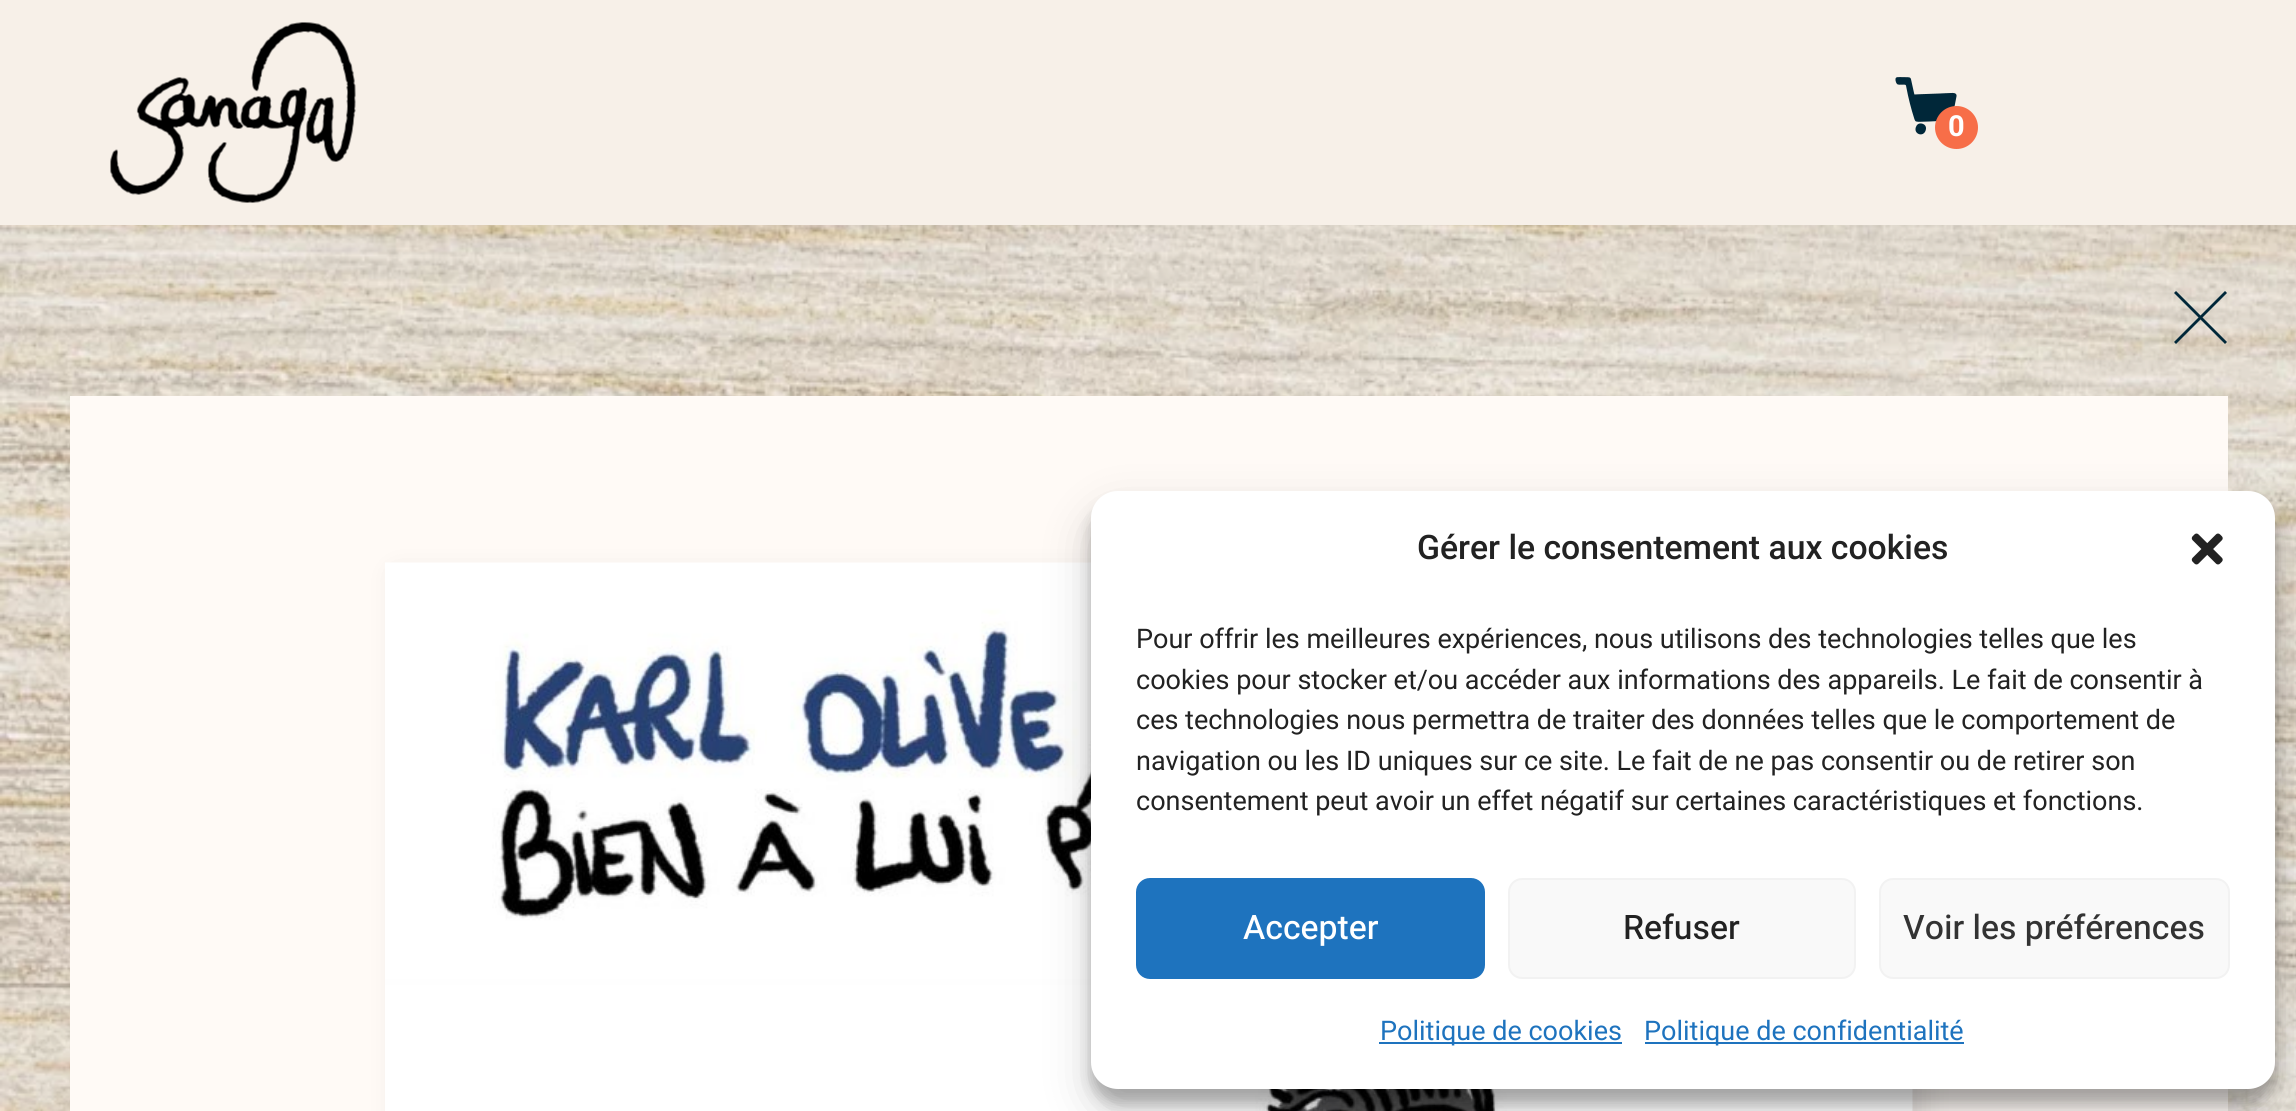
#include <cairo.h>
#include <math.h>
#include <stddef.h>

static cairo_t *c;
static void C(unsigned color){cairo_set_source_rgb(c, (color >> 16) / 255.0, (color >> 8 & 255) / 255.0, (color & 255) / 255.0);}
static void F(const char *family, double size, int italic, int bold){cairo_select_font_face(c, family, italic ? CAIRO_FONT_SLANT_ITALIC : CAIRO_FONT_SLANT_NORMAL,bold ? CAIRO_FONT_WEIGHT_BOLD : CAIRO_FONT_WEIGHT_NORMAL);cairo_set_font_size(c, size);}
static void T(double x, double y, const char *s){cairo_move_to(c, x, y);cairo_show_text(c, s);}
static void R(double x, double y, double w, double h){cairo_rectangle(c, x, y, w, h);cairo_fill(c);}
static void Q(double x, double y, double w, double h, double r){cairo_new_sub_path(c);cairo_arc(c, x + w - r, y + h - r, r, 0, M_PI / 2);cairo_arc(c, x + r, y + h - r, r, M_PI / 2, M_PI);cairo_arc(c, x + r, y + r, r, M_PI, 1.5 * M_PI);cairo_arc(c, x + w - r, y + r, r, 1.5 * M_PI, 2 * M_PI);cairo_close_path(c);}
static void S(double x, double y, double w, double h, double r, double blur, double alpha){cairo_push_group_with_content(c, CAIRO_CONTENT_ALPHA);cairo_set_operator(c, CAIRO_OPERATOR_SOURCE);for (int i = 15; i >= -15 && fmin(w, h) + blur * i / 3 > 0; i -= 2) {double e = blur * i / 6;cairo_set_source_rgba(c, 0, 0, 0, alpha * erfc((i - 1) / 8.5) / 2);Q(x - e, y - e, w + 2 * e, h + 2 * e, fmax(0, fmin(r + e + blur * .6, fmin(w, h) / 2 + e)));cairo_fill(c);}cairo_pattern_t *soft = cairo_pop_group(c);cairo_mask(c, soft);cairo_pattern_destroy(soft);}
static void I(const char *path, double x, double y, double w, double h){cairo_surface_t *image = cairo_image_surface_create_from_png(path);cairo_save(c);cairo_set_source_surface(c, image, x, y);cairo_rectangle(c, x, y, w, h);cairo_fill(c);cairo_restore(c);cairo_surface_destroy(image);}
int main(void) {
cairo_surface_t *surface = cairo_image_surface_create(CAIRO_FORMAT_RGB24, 2296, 1111);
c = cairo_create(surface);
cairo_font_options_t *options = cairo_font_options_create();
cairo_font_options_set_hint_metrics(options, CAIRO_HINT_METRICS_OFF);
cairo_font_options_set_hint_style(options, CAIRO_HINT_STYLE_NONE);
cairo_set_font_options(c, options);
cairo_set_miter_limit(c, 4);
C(0xffffff);
cairo_paint(c);
I("1.png",0,225,2296,886);
C(0xf7f0e8);
R(0,0,2296,225);
I("2.png",110,22,246,181);
I("3.png",1895,77,62,58);
C(0xf76e48);
cairo_arc(c,1956.5,127.5,21.5,0,2 * M_PI);
cairo_fill(c);
F("Roboto",29,0,1);
C(0xffffff);
T(1948,136,"0");
C(0x002739);
cairo_set_fill_rule(c,CAIRO_FILL_RULE_EVEN_ODD);
cairo_new_path(c);
cairo_move_to(c,2225,344);
cairo_line_to(c,2174,293);
cairo_line_to(c,2176,291);
cairo_line_to(c,2227,342);
cairo_close_path(c);
cairo_fill(c);
cairo_new_path(c);
cairo_move_to(c,2176,344);
cairo_line_to(c,2227,293);
cairo_line_to(c,2225,291);
cairo_line_to(c,2174,342);
cairo_close_path(c);
cairo_fill(c);
C(0xfffaf6);
R(70,396,2158,715);
C(0x000000);
S(396,574,1528,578,0,13.5,.1);
I("4.png",385,562,1528,549);
S(1091,504,1184,599,27,7,.23);
S(1091,513,1184,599,27,22.5,.19);
C(0xffffff);
Q(1091,491,1184,598,27);
cairo_fill(c);
F("Roboto Medium",33.75,0,0);
C(0x222222);
T(1417,559,"Gérer le consentement aux cookies");
I("5.png",2191,533,32,32);
F("Roboto",27,0,0);
T(1136,648,"Pour offrir les meilleures expériences, nous utilisons des technologies telles que les");
T(1136,689,"cookies pour stocker et/ou accéder aux informations des appareils. Le fait de consentir à");
T(1136,729,"ces technologies nous permettra de traiter des données telles que le comportement de");
T(1136,770,"navigation ou les ID uniques sur ce site. Le fait de ne pas consentir ou de retirer son");
T(1136,810,"consentement peut avoir un effet négatif sur certaines caractéristiques et fonctions.");
C(0x1e73be);
Q(1137,879,347,99,13);
cairo_fill_preserve(c);
cairo_stroke(c);
F("Heebo Medium",33.75,0,0);
C(0xffffff);
T(1243,939,"Accepter");
C(0xf9f9f9);
Q(1509,879,346,99,13);
cairo_fill_preserve(c);
C(0xf2f2f2);
cairo_stroke(c);
C(0x222222);
T(1623,939,"Refuser");
C(0xf9f9f9);
Q(1880,879,349,99,13);
cairo_fill_preserve(c);
C(0xf2f2f2);
cairo_stroke(c);
C(0x333333);
T(1903,939,"Voir les préférences");
C(0x1e73be);
R(1379,1042,243,2);
F("Roboto",27,0,0);
T(1380,1040,"Politique de cookies");
R(1645,1042,319,2);
T(1644,1040,"Politique de confidentialité");
cairo_surface_write_to_png(surface, "o.png");
cairo_font_options_destroy(options);
cairo_destroy(c);
cairo_surface_destroy(surface);
return 0;
}
